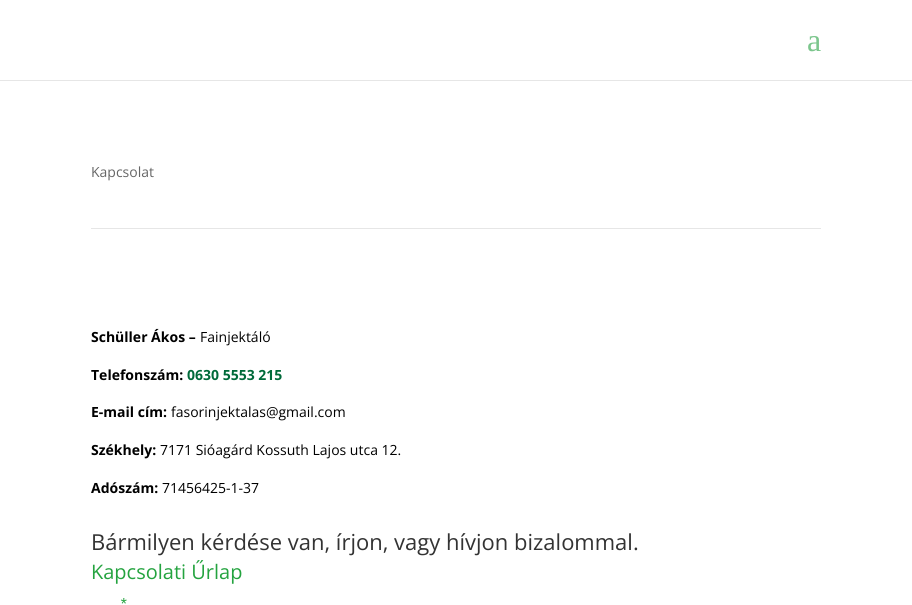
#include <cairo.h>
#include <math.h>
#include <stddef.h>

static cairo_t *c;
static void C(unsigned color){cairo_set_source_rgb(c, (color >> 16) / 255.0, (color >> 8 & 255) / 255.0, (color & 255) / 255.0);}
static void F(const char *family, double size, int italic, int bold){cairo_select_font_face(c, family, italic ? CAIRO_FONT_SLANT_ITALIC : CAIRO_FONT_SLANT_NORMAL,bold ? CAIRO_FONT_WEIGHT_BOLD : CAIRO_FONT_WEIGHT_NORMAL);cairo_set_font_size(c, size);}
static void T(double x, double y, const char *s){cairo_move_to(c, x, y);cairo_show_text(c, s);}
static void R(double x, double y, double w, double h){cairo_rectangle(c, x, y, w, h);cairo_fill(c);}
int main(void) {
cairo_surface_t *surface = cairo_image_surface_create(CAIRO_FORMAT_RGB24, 912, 605);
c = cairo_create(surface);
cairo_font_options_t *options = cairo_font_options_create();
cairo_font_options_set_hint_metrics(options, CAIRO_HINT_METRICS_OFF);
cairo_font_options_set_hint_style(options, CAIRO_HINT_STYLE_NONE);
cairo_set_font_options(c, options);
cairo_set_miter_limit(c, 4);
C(0xffffff);
cairo_paint(c);
C(0xe6e6e6);
R(0,80,912,1);
F("Liberation Serif",32,0,0);
C(0x7cc68d);
T(807,51,"a");
F("Open Sans",14,0,0);
C(0x666666);
T(91,177,"Kapcsolat");
C(0xe6e6e6);
R(91,228,730,1);
F("Open Sans",14,0,1);
C(0x000000);
T(91,342,"Schüller Ákos –");
F("Open Sans",14,0,0);
T(200,342,"Fainjektáló");
F("Open Sans",14,0,1);
T(91,380,"Telefonszám:");
C(0x006a3a);
T(187,380,"0630 5553 215");
C(0x000000);
T(91,417,"E-mail cím:");
F("Open Sans",14,0,0);
T(171,417,"fasorinjektalas@gmail.com");
F("Open Sans",14,0,1);
T(91,455,"Székhely:");
F("Open Sans",14,0,0);
T(160,455,"7171 Sióagárd Kossuth Lajos utca 12.");
F("Open Sans",14,0,1);
T(91,493,"Adószám:");
F("Open Sans",14,0,0);
T(162,493,"71456425-1-37");
F("Open Sans",22,0,0);
C(0x333333);
T(91,550,"Bármilyen kérdése van, írjon, vagy hívjon bizalommal.");
F("Open Sans",20,0,0);
C(0x24a33f);
T(91,579,"Kapcsolati Űrlap");
F("Liberation Sans",16,1,0);
T(120,609,"*");
cairo_surface_write_to_png(surface, "o.png");
cairo_font_options_destroy(options);
cairo_destroy(c);
cairo_surface_destroy(surface);
return 0;
}
